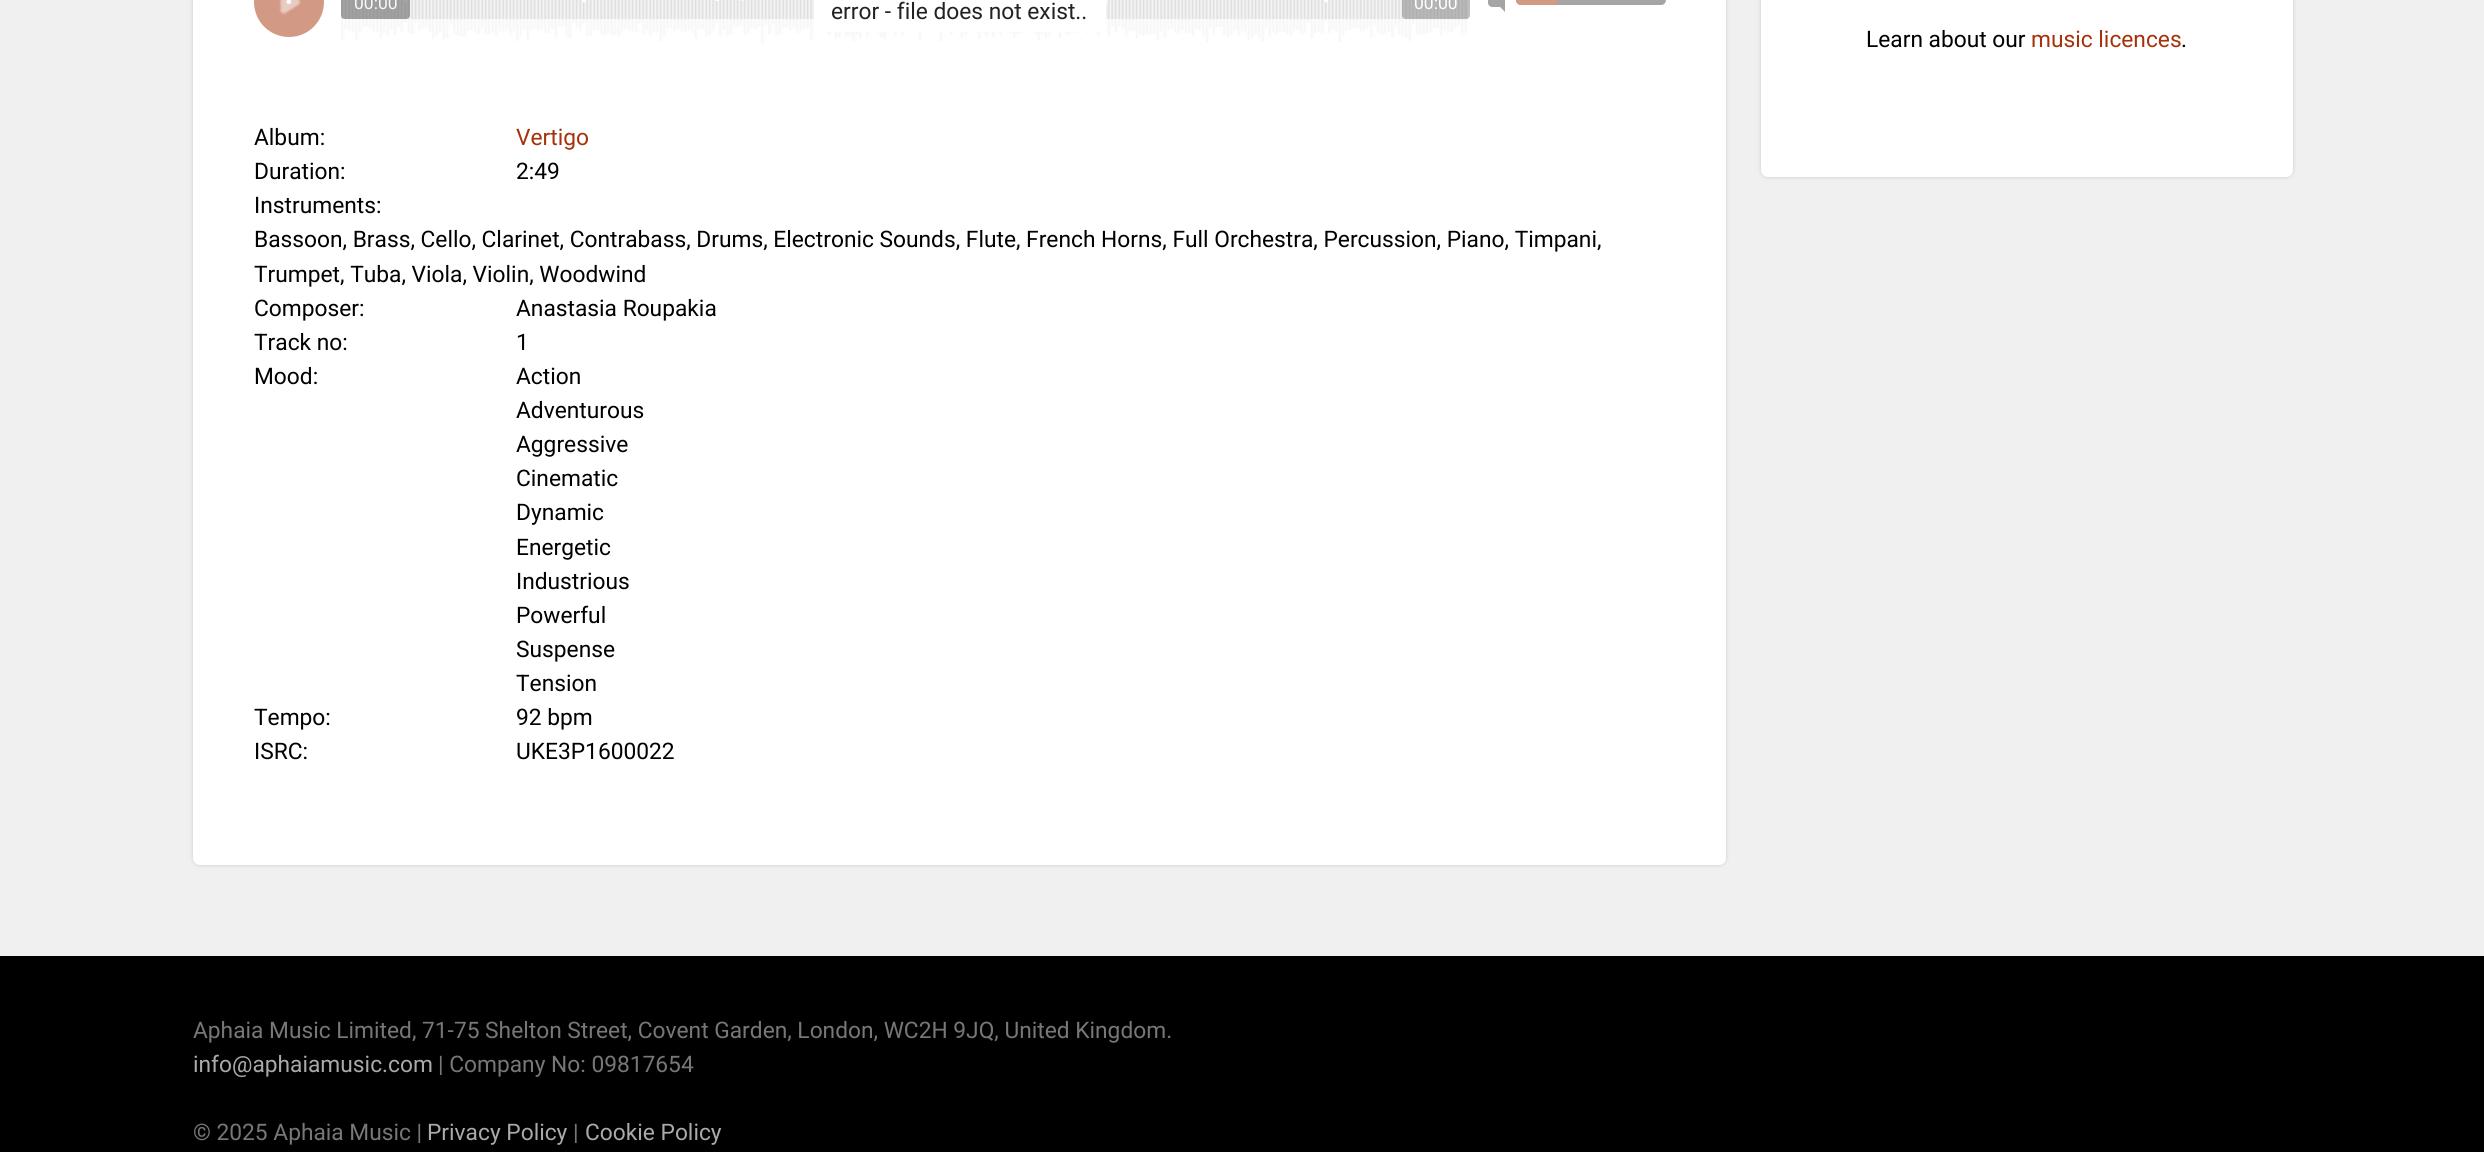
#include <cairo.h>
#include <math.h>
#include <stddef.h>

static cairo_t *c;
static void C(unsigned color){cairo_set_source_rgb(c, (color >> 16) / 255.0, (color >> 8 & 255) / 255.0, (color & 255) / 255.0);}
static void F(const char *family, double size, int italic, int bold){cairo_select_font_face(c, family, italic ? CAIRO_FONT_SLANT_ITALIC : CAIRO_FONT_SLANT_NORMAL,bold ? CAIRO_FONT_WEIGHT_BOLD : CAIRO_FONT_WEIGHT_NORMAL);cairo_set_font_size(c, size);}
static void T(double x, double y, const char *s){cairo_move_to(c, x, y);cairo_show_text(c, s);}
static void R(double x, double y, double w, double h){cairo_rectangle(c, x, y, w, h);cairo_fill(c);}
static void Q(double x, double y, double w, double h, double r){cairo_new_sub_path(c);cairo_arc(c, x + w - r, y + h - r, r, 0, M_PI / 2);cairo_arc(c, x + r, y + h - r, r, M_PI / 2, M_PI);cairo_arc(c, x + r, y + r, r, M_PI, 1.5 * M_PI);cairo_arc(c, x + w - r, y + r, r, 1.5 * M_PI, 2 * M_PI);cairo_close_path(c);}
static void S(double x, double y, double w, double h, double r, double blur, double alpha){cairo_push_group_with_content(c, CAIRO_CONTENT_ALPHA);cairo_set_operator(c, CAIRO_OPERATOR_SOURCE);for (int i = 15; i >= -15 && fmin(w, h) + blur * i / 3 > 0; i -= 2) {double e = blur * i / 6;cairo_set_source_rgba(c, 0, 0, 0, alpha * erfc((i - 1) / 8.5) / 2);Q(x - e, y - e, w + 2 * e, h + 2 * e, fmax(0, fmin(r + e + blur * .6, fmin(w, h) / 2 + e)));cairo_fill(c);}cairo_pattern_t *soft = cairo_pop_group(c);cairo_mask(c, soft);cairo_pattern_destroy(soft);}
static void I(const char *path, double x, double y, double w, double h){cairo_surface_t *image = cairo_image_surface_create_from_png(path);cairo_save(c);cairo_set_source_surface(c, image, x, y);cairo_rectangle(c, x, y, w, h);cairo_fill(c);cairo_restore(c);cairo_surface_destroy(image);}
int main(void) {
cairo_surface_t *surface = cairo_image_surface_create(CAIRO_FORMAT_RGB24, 2484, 1152);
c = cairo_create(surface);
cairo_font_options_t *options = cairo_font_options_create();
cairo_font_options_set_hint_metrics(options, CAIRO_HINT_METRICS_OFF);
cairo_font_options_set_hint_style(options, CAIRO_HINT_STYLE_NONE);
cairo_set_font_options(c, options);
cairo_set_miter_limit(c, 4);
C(0xf0f0f0);
cairo_paint(c);
C(0xcccccc);
S(193,-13,1533,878,7,2,1);
C(0xffffff);
Q(193,-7,1533,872,7);
cairo_fill(c);
C(0xd29985);
cairo_arc(c,289,2,35,0,2 * M_PI);
cairo_fill(c);
I("1.png",279,0,23,15);
cairo_arc(c,288.8,1.8,1.2,0,2 * M_PI);
C(0xfdfbfa);
cairo_set_line_width(c,2.4);
cairo_stroke(c);
I("2.png",341,0,1127,44);
cairo_set_source_rgba(c,0.502,0.502,0.502,0.7);
Q(341,-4,69,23,4);
cairo_fill(c);
F("Roboto",17.5,0,0);
C(0xf7f7f7);
T(354,9,"00:00");
cairo_set_source_rgba(c,0.502,0.502,0.502,0.5);
Q(1402,-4,68,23,4);
cairo_fill(c);
C(0xffffff);
T(1414,9,"00:00");
C(0xa7a4a4);
Q(1516,-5,150,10,5);
cairo_fill(c);
cairo_new_path(c);
cairo_move_to(c,1492,-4);
cairo_line_to(c,1500,-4);
cairo_line_to(c,1500,7);
cairo_line_to(c,1492,7);
cairo_curve_to(c,1490,7,1488,5,1488,3);
cairo_line_to(c,1488,0);
cairo_curve_to(c,1488,-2,1490,-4,1492,-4);
cairo_close_path(c);
cairo_fill(c);
cairo_new_path(c);
cairo_move_to(c,1505,-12);
cairo_line_to(c,1505,12);
cairo_line_to(c,1493,0);
cairo_close_path(c);
cairo_fill(c);
C(0xd29985);
Q(1516,-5,42,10,5);
cairo_fill(c);
C(0xffffff);
R(814,0,292,32);
F("Roboto",22.75,0,0);
C(0x222222);
T(831,19,"error - file does not exist..");
C(0x000000);
T(254,145,"Album:");
C(0xa5320a);
T(516,145,"Vertigo");
C(0x000000);
T(254,179,"Duration:");
T(516,179,"2:49");
T(254,213,"Instruments:");
T(254,247,"Bassoon, Brass, Cello, Clarinet, Contrabass, Drums, Electronic Sounds, Flute, French Horns, Full Orchestra, Percussion, Piano, Timpani,");
T(254,282,"Trumpet, Tuba, Viola, Violin, Woodwind");
T(254,316,"Composer:");
T(516,316,"Anastasia Roupakia");
T(254,350,"Track no:");
T(516,350,"1");
T(254,384,"Mood:");
T(516,384,"Action");
T(516,418,"Adventurous");
T(516,452,"Aggressive");
T(516,486,"Cinematic");
T(516,520,"Dynamic");
T(516,555,"Energetic");
T(516,589,"Industrious");
T(516,623,"Powerful");
T(516,657,"Suspense");
T(516,691,"Tension");
T(254,725,"Tempo:");
T(516,725,"92 bpm");
T(254,759,"ISRC:");
T(516,759,"UKE3P1600022");
C(0xcccccc);
S(1761,-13,532,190,7,2,1);
C(0xffffff);
Q(1761,-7,532,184,7);
cairo_fill(c);
C(0x000000);
T(1866,47,"Learn about our");
C(0xa5320a);
T(2031,47,"music licences");
C(0x000000);
T(2181,47,".");
R(0,956,2484,196);
C(0x777777);
T(193,1038,"Aphaia Music Limited, 71-75 Shelton Street, Covent Garden, London, WC2H 9JQ, United Kingdom.");
C(0xaaaaaa);
T(193,1072,"info@aphaiamusic.com");
C(0x777777);
T(438,1072,"| Company No: 09817654");
T(193,1140,"© 2025 Aphaia Music |");
C(0xaaaaaa);
T(427,1140,"Privacy Policy");
C(0x777777);
T(573,1140,"|");
C(0xaaaaaa);
T(585,1140,"Cookie Policy");
cairo_surface_write_to_png(surface, "o.png");
cairo_font_options_destroy(options);
cairo_destroy(c);
cairo_surface_destroy(surface);
return 0;
}
